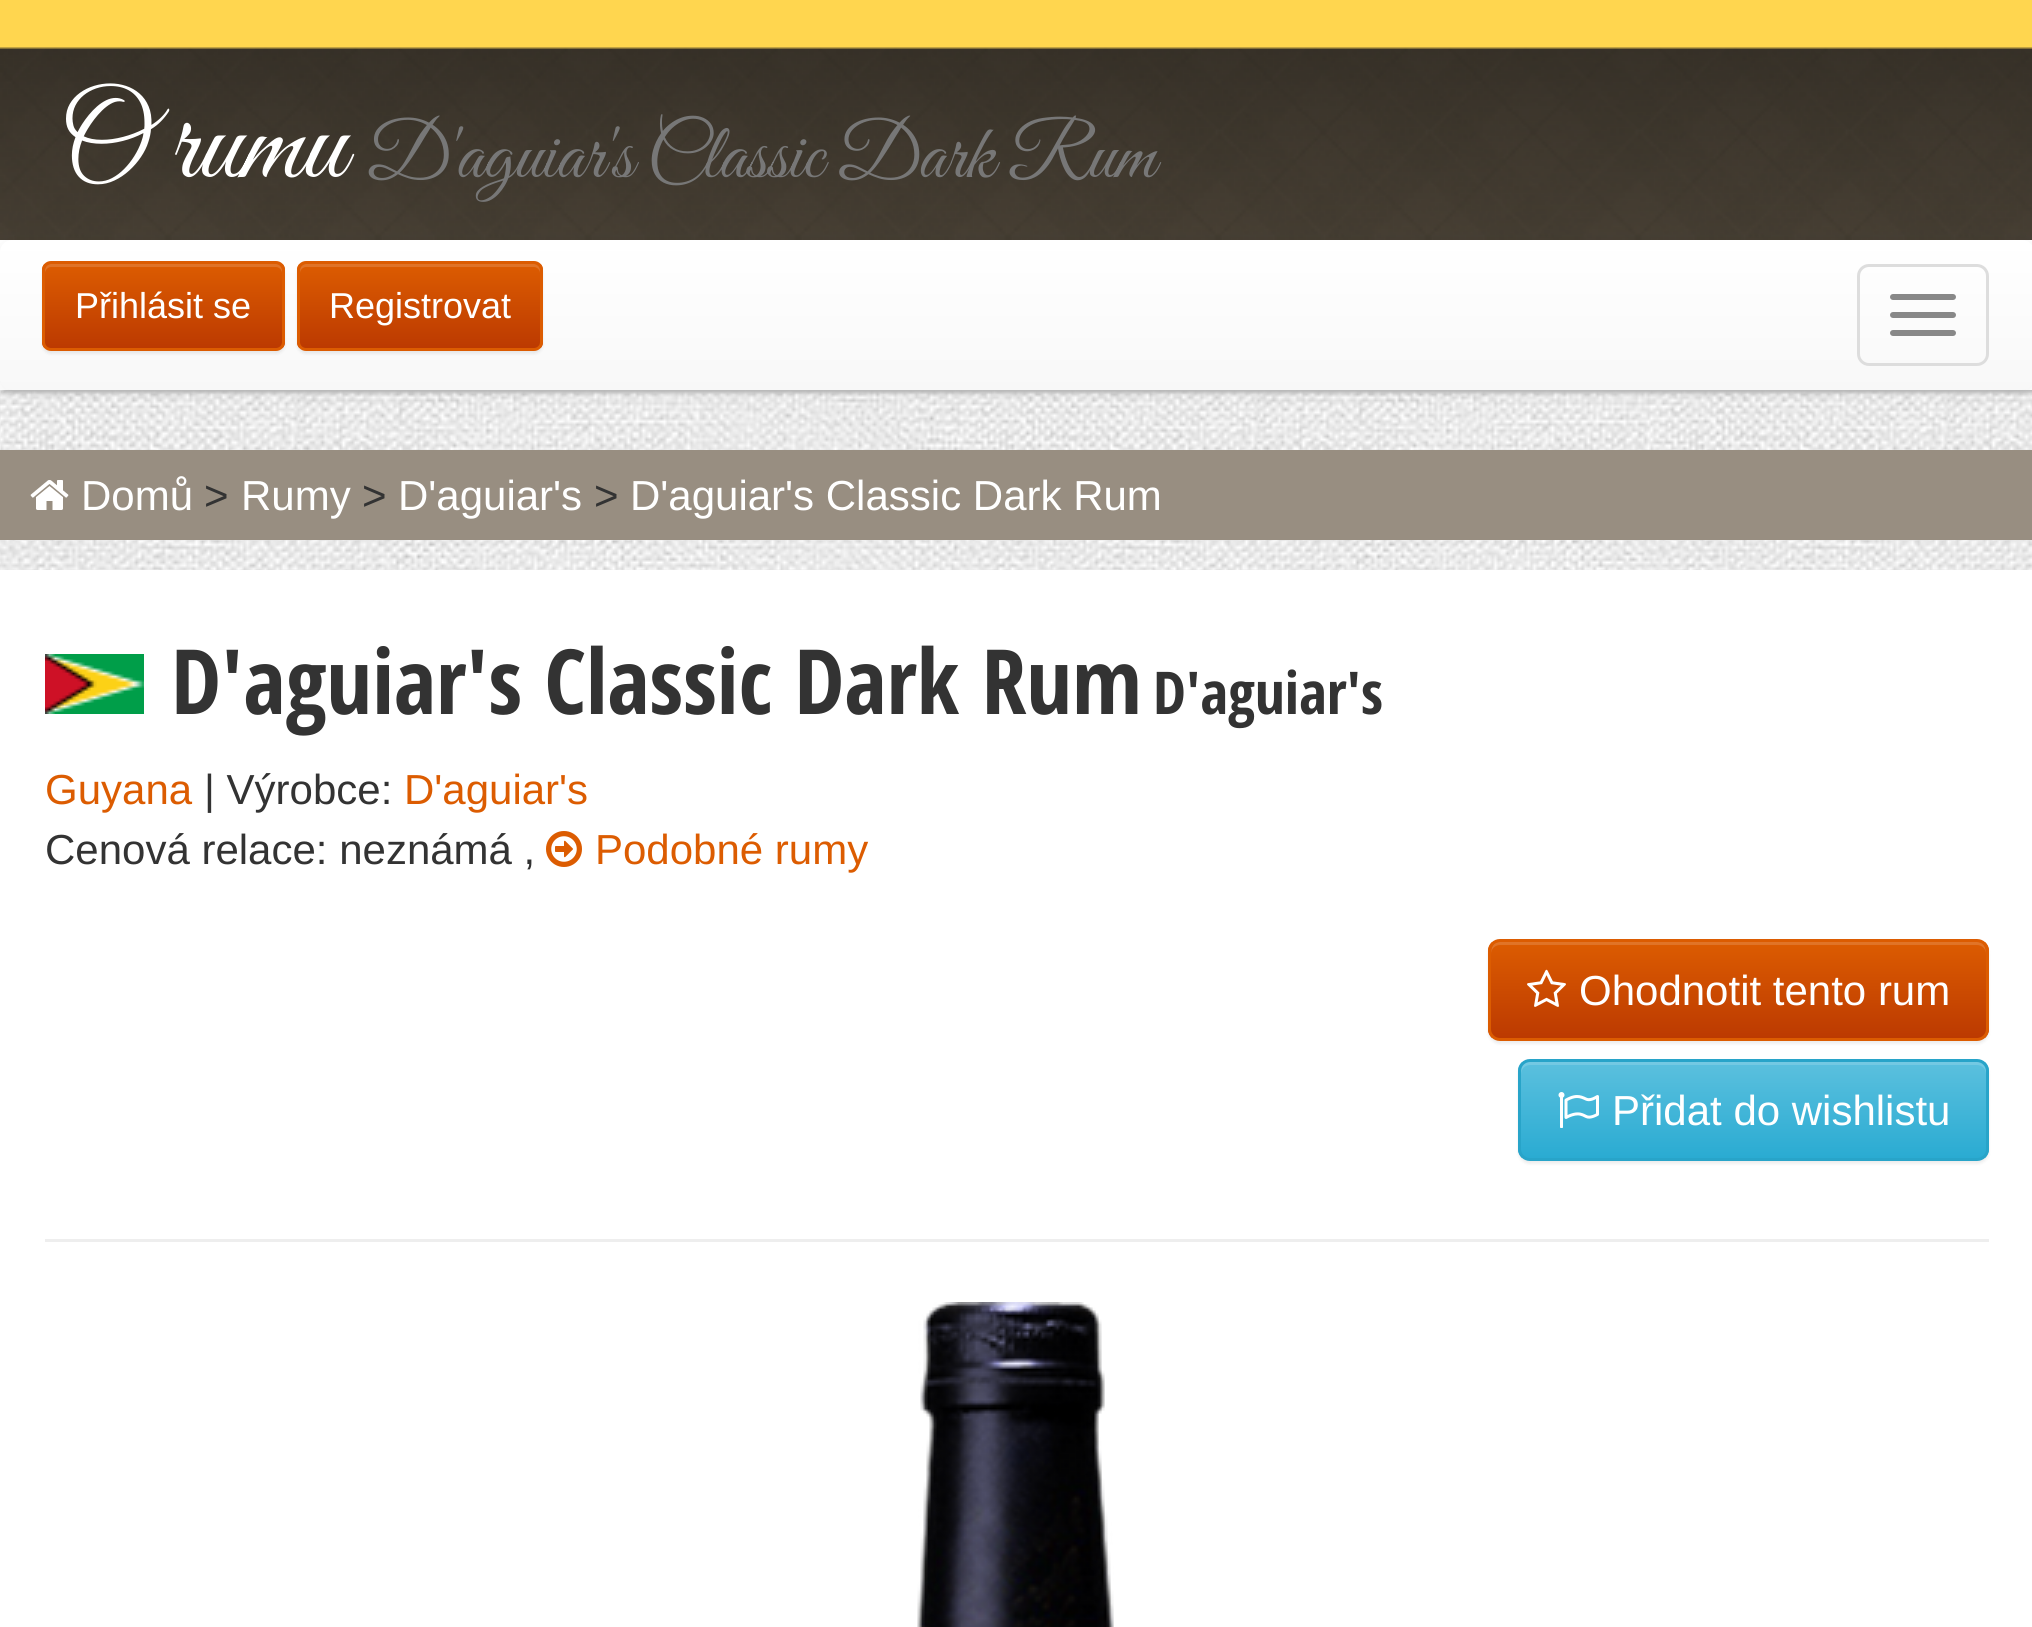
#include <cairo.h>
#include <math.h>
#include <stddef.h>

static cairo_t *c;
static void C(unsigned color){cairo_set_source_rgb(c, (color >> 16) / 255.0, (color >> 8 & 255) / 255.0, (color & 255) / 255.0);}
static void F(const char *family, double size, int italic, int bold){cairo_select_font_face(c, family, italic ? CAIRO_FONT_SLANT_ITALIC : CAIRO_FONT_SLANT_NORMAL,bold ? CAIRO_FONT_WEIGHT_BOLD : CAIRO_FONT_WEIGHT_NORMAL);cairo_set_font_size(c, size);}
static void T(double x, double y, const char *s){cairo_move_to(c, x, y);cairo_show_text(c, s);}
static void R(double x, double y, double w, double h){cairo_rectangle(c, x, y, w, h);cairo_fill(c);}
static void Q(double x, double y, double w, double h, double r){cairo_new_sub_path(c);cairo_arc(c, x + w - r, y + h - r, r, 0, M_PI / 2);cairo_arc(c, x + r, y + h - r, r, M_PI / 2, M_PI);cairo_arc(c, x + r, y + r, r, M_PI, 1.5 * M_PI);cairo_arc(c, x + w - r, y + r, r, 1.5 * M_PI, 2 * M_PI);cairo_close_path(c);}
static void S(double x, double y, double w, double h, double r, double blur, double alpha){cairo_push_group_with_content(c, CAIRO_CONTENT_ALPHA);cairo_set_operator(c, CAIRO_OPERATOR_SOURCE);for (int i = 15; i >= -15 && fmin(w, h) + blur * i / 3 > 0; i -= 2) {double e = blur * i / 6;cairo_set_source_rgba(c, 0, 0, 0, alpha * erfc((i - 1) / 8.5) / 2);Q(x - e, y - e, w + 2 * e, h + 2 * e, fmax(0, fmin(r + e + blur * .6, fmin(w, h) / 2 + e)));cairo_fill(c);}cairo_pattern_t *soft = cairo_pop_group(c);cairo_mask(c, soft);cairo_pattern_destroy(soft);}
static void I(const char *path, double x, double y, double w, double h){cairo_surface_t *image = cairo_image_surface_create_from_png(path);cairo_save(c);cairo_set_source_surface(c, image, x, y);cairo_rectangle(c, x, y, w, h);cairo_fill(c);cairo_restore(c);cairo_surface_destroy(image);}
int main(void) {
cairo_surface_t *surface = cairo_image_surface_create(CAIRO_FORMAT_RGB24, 2032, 1627);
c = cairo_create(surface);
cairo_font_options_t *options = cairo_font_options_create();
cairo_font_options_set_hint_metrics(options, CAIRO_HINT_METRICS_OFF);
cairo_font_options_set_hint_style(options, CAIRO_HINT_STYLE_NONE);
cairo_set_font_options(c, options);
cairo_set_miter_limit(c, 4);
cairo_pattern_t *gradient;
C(0xffffff);
cairo_paint(c);
I("1.png",0,390,2032,180);
C(0xc0c0c0);
S(3,3,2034,390,0,1.5,1);
C(0xffffff);
R(0,240,2032,150);
I("2.png",0,0,2032,240);
F("Great Vibes",120,0,0);
T(60,177,"O rumu");
F("Great Vibes",78,0,0);
C(0x777777);
T(366,177,"D'aguiar's Classic Dark Rum");
C(0x000000);
S(0,243,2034,150,12,7.5,.07);
gradient = cairo_pattern_create_linear(1017,240,1017,390);
cairo_pattern_add_color_stop_rgba(gradient,0,1,1,1,1);
cairo_pattern_add_color_stop_rgba(gradient,1,0.973,0.973,0.973,1);
cairo_set_source(c,gradient);
cairo_pattern_destroy(gradient);
Q(0,240,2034,150,12);
cairo_fill(c);
C(0x000000);
S(42,264,243,90,9,1.5,.07);
cairo_save(c);
Q(42,261,243,90,9);
cairo_clip(c);
gradient = cairo_pattern_create_linear(164,264,164,348);
cairo_pattern_add_color_stop_rgba(gradient,0,0.863,0.361,0.004,1);
cairo_pattern_add_color_stop_rgba(gradient,1,0.737,0.227,0.004,1);
cairo_set_source(c,gradient);
cairo_pattern_destroy(gradient);
R(42,264,243,84);
cairo_restore(c);
cairo_set_source_rgba(c,1,1,1,0.15);
cairo_new_path(c);
cairo_move_to(c,51,267);
cairo_line_to(c,276,267);
cairo_curve_to(c,279,267,282,270,282,273);
cairo_line_to(c,282,270);
cairo_curve_to(c,282,267,279,264,276,264);
cairo_line_to(c,51,264);
cairo_curve_to(c,48,264,45,267,45,270);
cairo_line_to(c,45,273);
cairo_curve_to(c,45,270,48,267,51,267);
cairo_close_path(c);
cairo_fill(c);
Q(43.5,262.5,240,87,7.5);
C(0xdc5c01);
cairo_set_line_width(c,3);
cairo_stroke(c);
F("Liberation Sans",36,0,0);
C(0xffffff);
T(75,318,"Přihlásit se");
C(0x000000);
S(297,264,246,90,9,1.5,.07);
cairo_save(c);
Q(297,261,246,90,9);
cairo_clip(c);
gradient = cairo_pattern_create_linear(420,264,420,348);
cairo_pattern_add_color_stop_rgba(gradient,0,0.863,0.361,0.004,1);
cairo_pattern_add_color_stop_rgba(gradient,1,0.737,0.227,0.004,1);
cairo_set_source(c,gradient);
cairo_pattern_destroy(gradient);
R(297,264,246,84);
cairo_restore(c);
cairo_set_source_rgba(c,1,1,1,0.15);
cairo_new_path(c);
cairo_move_to(c,306,267);
cairo_line_to(c,534,267);
cairo_curve_to(c,537,267,540,270,540,273);
cairo_line_to(c,540,270);
cairo_curve_to(c,540,267,537,264,534,264);
cairo_line_to(c,306,264);
cairo_curve_to(c,303,264,300,267,300,270);
cairo_line_to(c,300,273);
cairo_curve_to(c,300,270,303,267,306,267);
cairo_close_path(c);
cairo_fill(c);
Q(298.5,262.5,243,87,7.5);
C(0xdc5c01);
cairo_stroke(c);
C(0xffffff);
T(329,318,"Registrovat");
Q(1858.5,265.5,129,99,10.5);
C(0xdddddd);
cairo_stroke(c);
C(0x888888);
Q(1890,294,66,6,3);
cairo_fill(c);
Q(1890,312,66,6,3);
cairo_fill(c);
Q(1890,330,66,6,3);
cairo_fill(c);
C(0x988e81);
R(0,450,2032,90);
I("3.png",30,480,39,30);
F("Liberation Sans",42,0,0);
C(0xffffff);
T(81,510,"Domů");
C(0x333333);
T(204,510,">");
C(0xffffff);
T(241,510,"Rumy");
C(0x333333);
T(362,510,">");
C(0xffffff);
T(398,510,"D'aguiar's");
C(0x333333);
T(594,510,">");
C(0xffffff);
T(630,510,"D'aguiar's Classic Dark Rum");
I("4.png",45,654,99,60);
F("Open Sans Condensed",90,0,1);
C(0x333333);
T(171,714,"D'aguiar's Classic Dark Rum");
F("Open Sans Condensed",59,0,1);
T(1153,714,"D'aguiar's");
F("Liberation Sans",42,0,0);
C(0xdc5c01);
T(45,804,"Guyana");
C(0x333333);
T(204,804,"| Výrobce:");
C(0xdc5c01);
T(404,804,"D'aguiar's");
C(0x333333);
T(45,864,"Cenová relace: neznámá ,");
I("5.png",546,831,36,36);
C(0xdc5c01);
T(595,864,"Podobné rumy");
C(0x000000);
S(1488,942,501,102,12,1.5,.07);
cairo_save(c);
Q(1488,939,501,102,12);
cairo_clip(c);
gradient = cairo_pattern_create_linear(1739,942,1739,1038);
cairo_pattern_add_color_stop_rgba(gradient,0,0.863,0.361,0.004,1);
cairo_pattern_add_color_stop_rgba(gradient,1,0.737,0.227,0.004,1);
cairo_set_source(c,gradient);
cairo_pattern_destroy(gradient);
R(1488,942,501,96);
cairo_restore(c);
cairo_set_source_rgba(c,1,1,1,0.15);
cairo_new_path(c);
cairo_move_to(c,1500,945);
cairo_line_to(c,1977,945);
cairo_curve_to(c,1982,945,1986,949,1986,954);
cairo_curve_to(c,1986,948,1984,942,1977,942);
cairo_line_to(c,1500,942);
cairo_curve_to(c,1493,942,1491,948,1491,954);
cairo_curve_to(c,1491,949,1495,945,1500,945);
cairo_close_path(c);
cairo_fill(c);
Q(1489.5,940.5,498,99,10.5);
C(0xdc5c01);
cairo_stroke(c);
I("6.png",1527,969,39,38);
C(0xffffff);
T(1579,1005,"Ohodnotit tento rum");
C(0x000000);
S(1518,1062,471,102,12,1.5,.07);
cairo_save(c);
Q(1518,1059,471,102,12);
cairo_clip(c);
gradient = cairo_pattern_create_linear(1754,1062,1754,1158);
cairo_pattern_add_color_stop_rgba(gradient,0,0.357,0.753,0.871,1);
cairo_pattern_add_color_stop_rgba(gradient,1,0.165,0.671,0.824,1);
cairo_set_source(c,gradient);
cairo_pattern_destroy(gradient);
R(1518,1062,471,96);
cairo_restore(c);
cairo_set_source_rgba(c,1,1,1,0.15);
cairo_new_path(c);
cairo_move_to(c,1530,1065);
cairo_line_to(c,1977,1065);
cairo_curve_to(c,1982,1065,1986,1069,1986,1074);
cairo_line_to(c,1986,1071);
cairo_curve_to(c,1986,1066,1982,1062,1977,1062);
cairo_line_to(c,1530,1062);
cairo_curve_to(c,1525,1062,1521,1066,1521,1071);
cairo_line_to(c,1521,1074);
cairo_curve_to(c,1521,1069,1525,1065,1530,1065);
cairo_close_path(c);
cairo_fill(c);
Q(1519.5,1060.5,468,99,10.5);
C(0x28a4c9);
cairo_stroke(c);
I("7.png",1558,1092,41,36);
C(0xffffff);
T(1612,1125,"Přidat do wishlistu");
C(0xeeeeee);
R(45,1239,1944,3);
I("8.png",917,1302,197,325);
cairo_surface_write_to_png(surface, "o.png");
cairo_font_options_destroy(options);
cairo_destroy(c);
cairo_surface_destroy(surface);
return 0;
}
